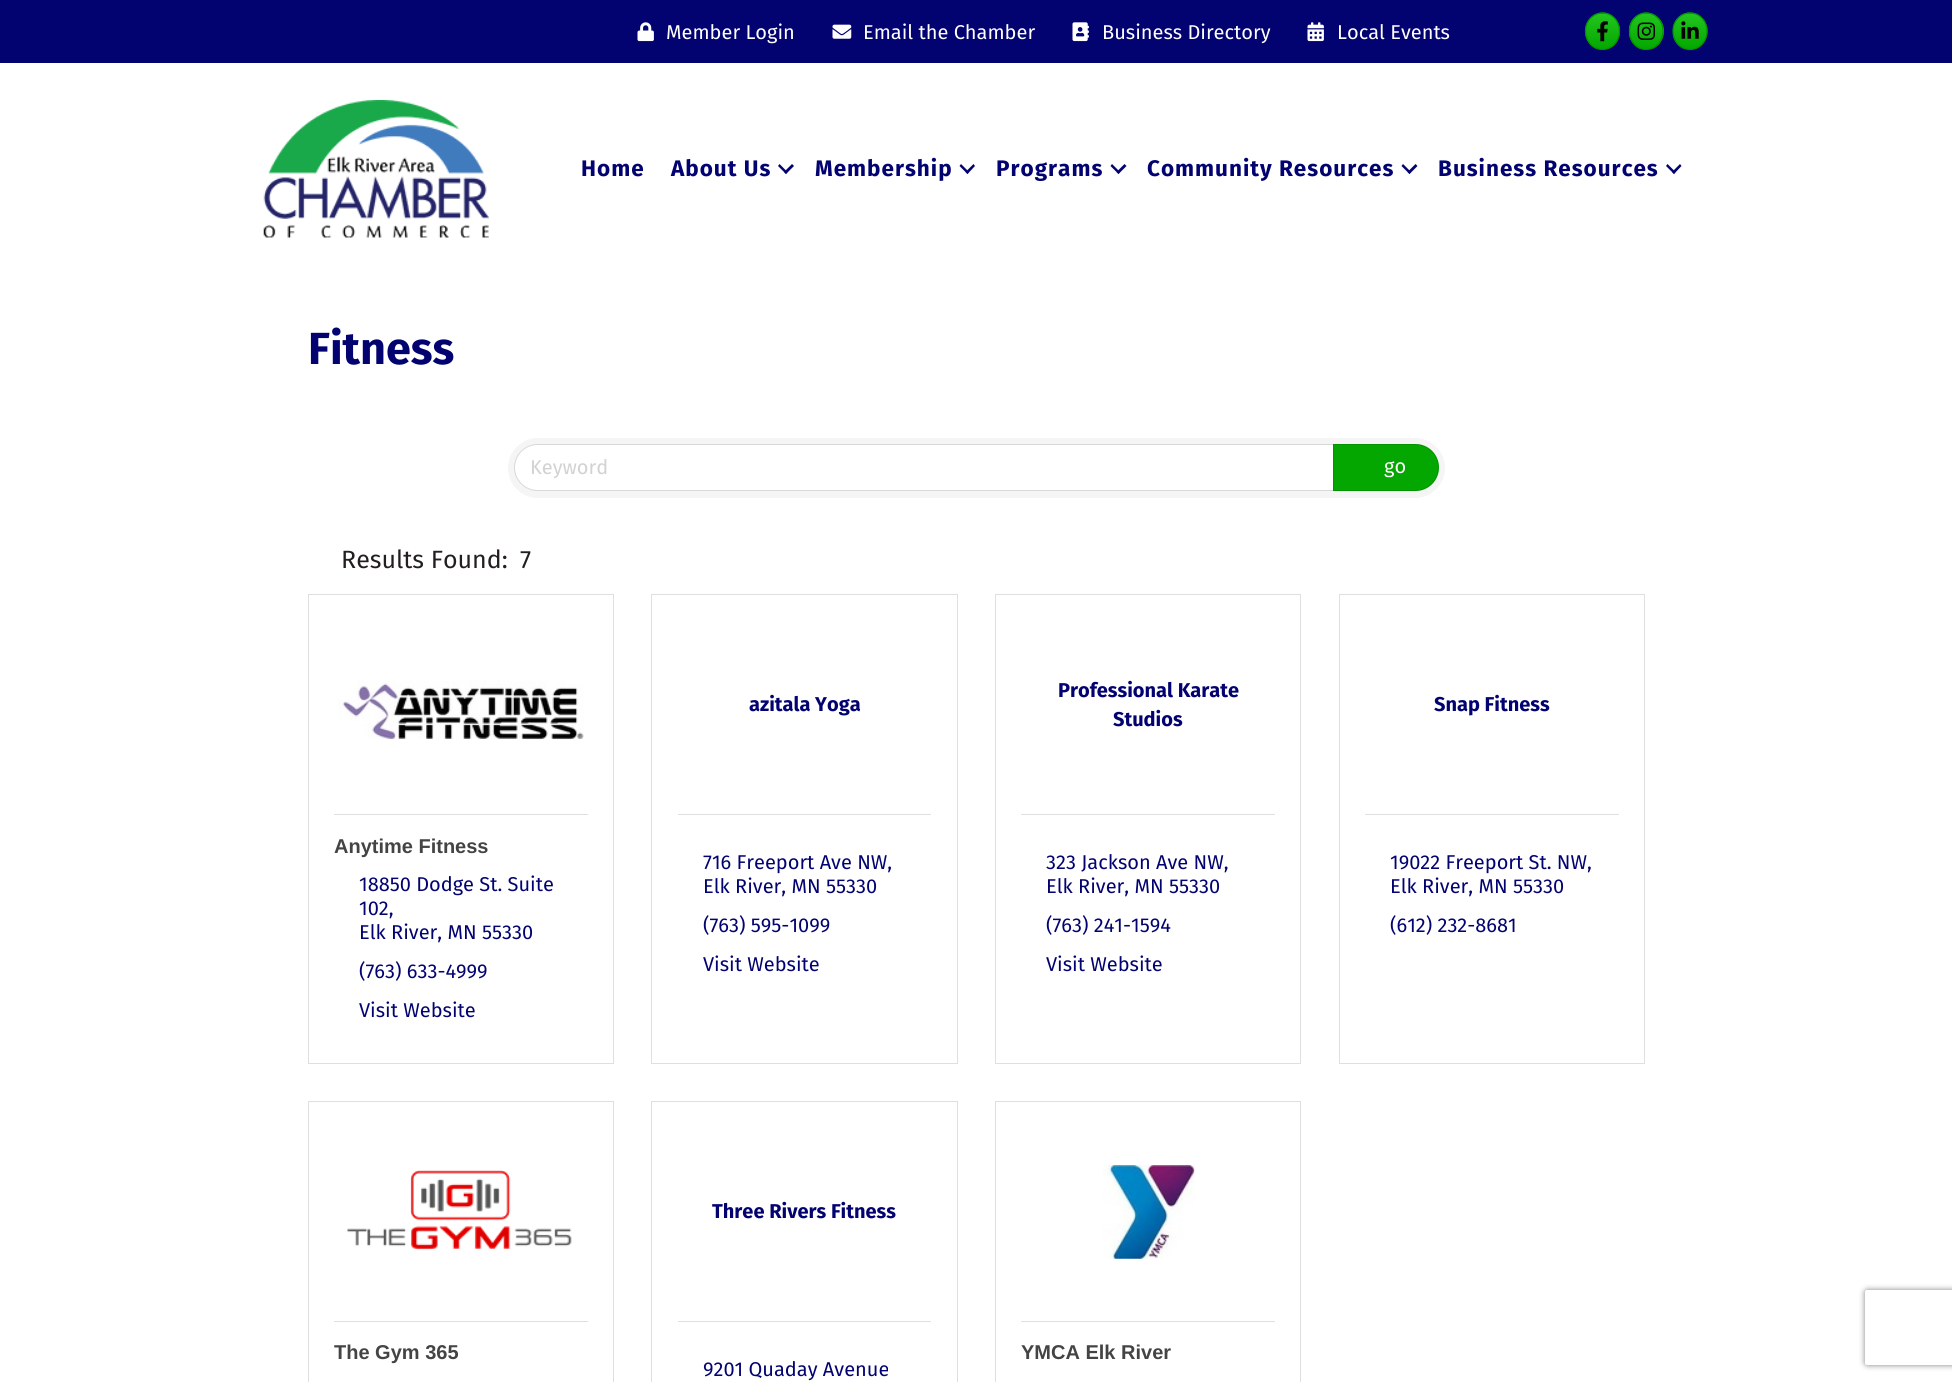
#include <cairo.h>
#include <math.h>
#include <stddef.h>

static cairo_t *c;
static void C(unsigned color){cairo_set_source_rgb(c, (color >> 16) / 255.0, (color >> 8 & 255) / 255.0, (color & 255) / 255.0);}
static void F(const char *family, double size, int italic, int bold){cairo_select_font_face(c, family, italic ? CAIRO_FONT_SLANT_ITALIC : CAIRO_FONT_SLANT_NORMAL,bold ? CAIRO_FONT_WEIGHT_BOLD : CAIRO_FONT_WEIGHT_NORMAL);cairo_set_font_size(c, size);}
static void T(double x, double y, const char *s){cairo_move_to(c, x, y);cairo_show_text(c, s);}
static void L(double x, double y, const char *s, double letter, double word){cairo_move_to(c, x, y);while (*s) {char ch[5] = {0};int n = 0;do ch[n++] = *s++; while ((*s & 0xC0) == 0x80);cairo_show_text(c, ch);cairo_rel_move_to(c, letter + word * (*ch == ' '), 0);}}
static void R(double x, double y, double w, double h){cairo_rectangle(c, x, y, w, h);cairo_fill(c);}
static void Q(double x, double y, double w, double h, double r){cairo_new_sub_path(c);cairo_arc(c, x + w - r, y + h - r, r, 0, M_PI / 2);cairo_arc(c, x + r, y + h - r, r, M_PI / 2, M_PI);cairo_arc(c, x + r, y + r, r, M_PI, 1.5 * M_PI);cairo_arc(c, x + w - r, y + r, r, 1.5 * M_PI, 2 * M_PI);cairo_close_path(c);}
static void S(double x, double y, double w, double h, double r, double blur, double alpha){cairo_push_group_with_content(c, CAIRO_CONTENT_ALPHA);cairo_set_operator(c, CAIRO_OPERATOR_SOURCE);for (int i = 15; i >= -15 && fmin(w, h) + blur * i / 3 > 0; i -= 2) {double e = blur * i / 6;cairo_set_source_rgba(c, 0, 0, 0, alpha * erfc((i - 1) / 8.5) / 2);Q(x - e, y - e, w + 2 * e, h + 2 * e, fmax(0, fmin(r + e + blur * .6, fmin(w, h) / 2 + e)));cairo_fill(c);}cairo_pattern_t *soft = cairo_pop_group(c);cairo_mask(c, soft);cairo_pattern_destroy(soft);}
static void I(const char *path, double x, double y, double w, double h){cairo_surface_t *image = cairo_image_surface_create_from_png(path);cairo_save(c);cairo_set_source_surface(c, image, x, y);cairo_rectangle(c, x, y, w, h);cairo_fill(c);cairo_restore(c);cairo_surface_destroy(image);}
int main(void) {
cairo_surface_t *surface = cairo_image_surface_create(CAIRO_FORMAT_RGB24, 1952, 1382);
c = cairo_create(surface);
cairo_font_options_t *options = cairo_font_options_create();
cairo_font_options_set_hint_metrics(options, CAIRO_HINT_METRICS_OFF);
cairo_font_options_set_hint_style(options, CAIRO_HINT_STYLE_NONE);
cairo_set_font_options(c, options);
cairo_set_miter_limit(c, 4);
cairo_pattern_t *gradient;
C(0xffffff);
cairo_paint(c);
C(0x020370);
R(0,0,1952,63);
I("1.png",637,22,17,20);
F("Fira Sans",20,0,0);
C(0xffffff);
T(666,39,"Member Login");
I("2.png",832,24,20,15);
T(863,39,"Email the Chamber");
I("3.png",1072,22,17,20);
T(1102,39,"Business Directory");
I("4.png",1307,22,17,20);
T(1337,39,"Local Events");
gradient = cairo_pattern_create_linear(1603,-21,1603,14);
cairo_pattern_add_color_stop_rgba(gradient,0,0.133,0.773,0.118,1);
cairo_pattern_add_color_stop_rgba(gradient,1,0.016,0.655,0,1);
cairo_set_source(c,gradient);
cairo_pattern_destroy(gradient);
cairo_new_path(c);
cairo_move_to(c,1602.5,12.5);
cairo_curve_to(c,1605,12.5,1607.5,13,1609.5,14);
cairo_line_to(c,1595.5,14);
cairo_curve_to(c,1597.5,13,1600,12.5,1602.5,12.5);
cairo_close_path(c);
cairo_fill(c);
gradient = cairo_pattern_create_linear(1603,14,1603,49);
cairo_pattern_add_color_stop_rgba(gradient,0,0.133,0.773,0.118,1);
cairo_pattern_add_color_stop_rgba(gradient,1,0.016,0.655,0,1);
cairo_set_source(c,gradient);
cairo_pattern_destroy(gradient);
cairo_new_path(c);
cairo_move_to(c,1597,49);
cairo_curve_to(c,1590,46.5,1585,39.5,1585,31);
cairo_curve_to(c,1585,23.5,1589.5,17,1595.5,14);
cairo_line_to(c,1609.5,14);
cairo_curve_to(c,1615.5,17,1620,23.5,1620,31);
cairo_curve_to(c,1620,39.5,1615,46.5,1608,49);
cairo_close_path(c);
cairo_fill(c);
cairo_new_path(c);
cairo_move_to(c,1602.5,13);
cairo_curve_to(c,1612,13,1619.5,21,1619.5,31);
cairo_curve_to(c,1619.5,41.5,1612,49.5,1602.5,49.5);
cairo_curve_to(c,1593,49.5,1585.5,41.5,1585.5,31);
cairo_curve_to(c,1585.5,21,1593,13,1602.5,13);
cairo_close_path(c);
C(0x009300);
cairo_set_line_width(c,1.2);
cairo_stroke(c);
I("5.png",1597,21,11,21);
gradient = cairo_pattern_create_linear(1646,-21,1646,14);
cairo_pattern_add_color_stop_rgba(gradient,0,0.133,0.773,0.118,1);
cairo_pattern_add_color_stop_rgba(gradient,1,0.016,0.655,0,1);
cairo_set_source(c,gradient);
cairo_pattern_destroy(gradient);
cairo_new_path(c);
cairo_move_to(c,1646,12.5);
cairo_curve_to(c,1648.5,12.5,1651,13,1653,14);
cairo_line_to(c,1639.5,14);
cairo_curve_to(c,1641.5,13,1644,12.5,1646,12.5);
cairo_close_path(c);
cairo_fill(c);
gradient = cairo_pattern_create_linear(1646,14,1646,49);
cairo_pattern_add_color_stop_rgba(gradient,0,0.133,0.773,0.118,1);
cairo_pattern_add_color_stop_rgba(gradient,1,0.016,0.655,0,1);
cairo_set_source(c,gradient);
cairo_pattern_destroy(gradient);
cairo_new_path(c);
cairo_move_to(c,1629,28);
cairo_curve_to(c,1630,21.5,1634,16.5,1639.5,14);
cairo_line_to(c,1653,14);
cairo_curve_to(c,1659.5,17,1664,23.5,1664,31);
cairo_curve_to(c,1664,39.5,1659,46.5,1652,49);
cairo_line_to(c,1640.5,49);
cairo_curve_to(c,1634.5,47,1630,41,1629,34.5);
cairo_close_path(c);
cairo_fill(c);
cairo_new_path(c);
cairo_move_to(c,1646,13);
cairo_curve_to(c,1655.5,13,1663,21,1663,31);
cairo_curve_to(c,1663,41.5,1655.5,49.5,1646,49.5);
cairo_curve_to(c,1637,49.5,1629.5,41.5,1629.5,31);
cairo_curve_to(c,1629.5,21,1637,13,1646,13);
cairo_close_path(c);
C(0x009300);
cairo_stroke(c);
I("6.png",1637,22,19,18);
gradient = cairo_pattern_create_linear(1690,-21,1690,14);
cairo_pattern_add_color_stop_rgba(gradient,0,0.133,0.773,0.118,1);
cairo_pattern_add_color_stop_rgba(gradient,1,0.016,0.655,0,1);
cairo_set_source(c,gradient);
cairo_pattern_destroy(gradient);
cairo_new_path(c);
cairo_move_to(c,1690,12.5);
cairo_curve_to(c,1692.5,12.5,1695,13,1697,14);
cairo_line_to(c,1683,14);
cairo_curve_to(c,1685,13,1687.5,12.5,1690,12.5);
cairo_close_path(c);
cairo_fill(c);
gradient = cairo_pattern_create_linear(1690,14,1690,49);
cairo_pattern_add_color_stop_rgba(gradient,0,0.133,0.773,0.118,1);
cairo_pattern_add_color_stop_rgba(gradient,1,0.016,0.655,0,1);
cairo_set_source(c,gradient);
cairo_pattern_destroy(gradient);
cairo_new_path(c);
cairo_move_to(c,1673,27);
cairo_curve_to(c,1674.5,21,1678,16.5,1683,14);
cairo_line_to(c,1697,14);
cairo_curve_to(c,1703,17,1707.5,23.5,1707.5,31);
cairo_curve_to(c,1707.5,39.5,1702.5,46.5,1695.5,49);
cairo_line_to(c,1684.5,49);
cairo_curve_to(c,1678.5,47,1674.5,42,1673,35.5);
cairo_close_path(c);
cairo_fill(c);
cairo_new_path(c);
cairo_move_to(c,1690,13);
cairo_curve_to(c,1699.5,13,1707,21,1707,31);
cairo_curve_to(c,1707,41.5,1699.5,49.5,1690,49.5);
cairo_curve_to(c,1680.5,49.5,1673,41.5,1673,31);
cairo_curve_to(c,1673,21,1680.5,13,1690,13);
cairo_close_path(c);
C(0x009300);
cairo_stroke(c);
I("7.png",1681,21,18,18);
I("8.png",263,100,226,138);
F("Fira Sans",22.5,0,1);
C(0x020370);
L(581,176,"Home",1,0);
L(671,176,"About Us",1,0);
cairo_new_path(c);
cairo_move_to(c,792,164);
cairo_line_to(c,794,166);
cairo_line_to(c,786,174);
cairo_line_to(c,784,172);
cairo_close_path(c);
cairo_fill(c);
cairo_new_path(c);
cairo_move_to(c,779.5,164);
cairo_line_to(c,787.5,172);
cairo_line_to(c,786,174);
cairo_line_to(c,778,166);
cairo_close_path(c);
cairo_fill(c);
L(815,176,"Membership",1,0);
cairo_new_path(c);
cairo_move_to(c,973.5,164);
cairo_line_to(c,975,166);
cairo_line_to(c,967.5,174);
cairo_line_to(c,965.5,172);
cairo_close_path(c);
cairo_fill(c);
cairo_new_path(c);
cairo_move_to(c,961,164);
cairo_line_to(c,969,172);
cairo_line_to(c,967.5,174);
cairo_line_to(c,959.5,166);
cairo_close_path(c);
cairo_fill(c);
L(996,176,"Programs",1,0);
cairo_new_path(c);
cairo_move_to(c,1124.5,164);
cairo_line_to(c,1126.5,166);
cairo_line_to(c,1118.5,174);
cairo_line_to(c,1116.5,172);
cairo_close_path(c);
cairo_fill(c);
cairo_new_path(c);
cairo_move_to(c,1112,164);
cairo_line_to(c,1120,172);
cairo_line_to(c,1118.5,174);
cairo_line_to(c,1110.5,166);
cairo_close_path(c);
cairo_fill(c);
L(1147,176,"Community Resources",1,0);
cairo_new_path(c);
cairo_move_to(c,1415.5,164);
cairo_line_to(c,1417.5,166);
cairo_line_to(c,1409.5,174);
cairo_line_to(c,1407.5,172);
cairo_close_path(c);
cairo_fill(c);
cairo_new_path(c);
cairo_move_to(c,1403,164);
cairo_line_to(c,1411,172);
cairo_line_to(c,1409.5,174);
cairo_line_to(c,1401.5,166);
cairo_close_path(c);
cairo_fill(c);
L(1438,176,"Business Resources",1,0);
cairo_new_path(c);
cairo_move_to(c,1680,164);
cairo_line_to(c,1681.5,166);
cairo_line_to(c,1674,174);
cairo_line_to(c,1672,172);
cairo_close_path(c);
cairo_fill(c);
cairo_new_path(c);
cairo_move_to(c,1667.5,164);
cairo_line_to(c,1675.5,172);
cairo_line_to(c,1674,174);
cairo_line_to(c,1666,166);
cairo_close_path(c);
cairo_fill(c);
F("Fira Sans",45,0,1);
T(308,364,"Fitness");
C(0xf5f5f5);
Q(508,438,937,60,30);
cairo_fill(c);
C(0xffffff);
cairo_new_path(c);
cairo_move_to(c,537.5,445);
cairo_line_to(c,1333,445);
cairo_line_to(c,1333,490);
cairo_line_to(c,537.5,490);
cairo_curve_to(c,525,490,515,480,515,467.5);
cairo_curve_to(c,515,455,525,445,537.5,445);
cairo_close_path(c);
cairo_fill(c);
cairo_new_path(c);
cairo_move_to(c,537.5,444.5);
cairo_line_to(c,1333.5,444.5);
cairo_line_to(c,1333.5,490.5);
cairo_line_to(c,537.5,490.5);
cairo_curve_to(c,525,490.5,514.5,480,514.5,467.5);
cairo_curve_to(c,514.5,455,525,444.5,537.5,444.5);
cairo_close_path(c);
cairo_set_source_rgba(c,0,0,0,0.12);
cairo_set_line_width(c,1);
cairo_stroke(c);
F("Fira Sans",20,0,0);
C(0xd2d2d2);
T(530,474,"Keyword");
C(0x04a700);
cairo_new_path(c);
cairo_move_to(c,1333,444);
cairo_line_to(c,1415.5,444);
cairo_curve_to(c,1428.5,444,1439,454.5,1439,467.5);
cairo_curve_to(c,1439,480.5,1428.5,491,1415.5,491);
cairo_line_to(c,1333,491);
cairo_close_path(c);
cairo_fill(c);
cairo_new_path(c);
cairo_move_to(c,1333.5,444.5);
cairo_line_to(c,1415.5,444.5);
cairo_curve_to(c,1428,444.5,1438.5,455,1438.5,467.5);
cairo_curve_to(c,1438.5,480,1428,490.5,1415.5,490.5);
cairo_line_to(c,1333.5,490.5);
cairo_close_path(c);
cairo_set_source_rgba(c,0,0,0,0.12);
cairo_stroke(c);
C(0xffffff);
T(1384,473,"go");
F("Fira Sans",25,0,0);
C(0x231f20);
T(341,568,"Results Found:");
T(520,568,"7");
cairo_rectangle(c,308.5,594.5,305,469);
C(0xdfdfdf);
cairo_stroke(c);
I("9.png",337,680,247,60);
R(334,814,254,1);
F("Liberation Sans",20,0,1);
C(0x444444);
T(334,853,"Anytime Fitness");
F("Fira Sans",20,0,0);
C(0x020370);
T(359,891,"18850 Dodge St. Suite");
T(359,915,"102,");
T(359,939,"Elk River, MN 55330");
T(359,978,"(763) 633-4999");
T(359,1017,"Visit Website");
cairo_rectangle(c,651.5,594.5,306,469);
C(0xdfdfdf);
cairo_stroke(c);
F("Fira Sans",20,0,1);
C(0x020370);
T(749,711,"azitala Yoga");
C(0xdfdfdf);
R(678,814,253,1);
F("Fira Sans",20,0,0);
C(0x020370);
T(703,869,"716 Freeport Ave NW,");
T(703,893,"Elk River, MN 55330");
T(703,932,"(763) 595-1099");
T(703,971,"Visit Website");
cairo_rectangle(c,995.5,594.5,305,469);
C(0xdfdfdf);
cairo_stroke(c);
F("Fira Sans",20,0,1);
C(0x020370);
T(1058,697,"Professional Karate");
T(1113,726,"Studios");
C(0xdfdfdf);
R(1021,814,254,1);
F("Fira Sans",20,0,0);
C(0x020370);
T(1046,869,"323 Jackson Ave NW,");
T(1046,893,"Elk River, MN 55330");
T(1046,932,"(763) 241-1594");
T(1046,971,"Visit Website");
cairo_rectangle(c,1339.5,594.5,305,469);
C(0xdfdfdf);
cairo_stroke(c);
F("Fira Sans",20,0,1);
C(0x020370);
T(1434,711,"Snap Fitness");
C(0xdfdfdf);
R(1365,814,254,1);
F("Fira Sans",20,0,0);
C(0x020370);
T(1390,869,"19022 Freeport St. NW,");
T(1390,893,"Elk River, MN 55330");
T(1390,932,"(612) 232-8681");
cairo_rectangle(c,308.5,1101.5,305,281);
C(0xdfdfdf);
cairo_stroke(c);
I("10.png",346,1170,226,80);
R(334,1321,254,1);
F("Liberation Sans",20,0,1);
C(0x444444);
T(334,1359,"The Gym 365");
cairo_rectangle(c,651.5,1101.5,306,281);
C(0xdfdfdf);
cairo_stroke(c);
F("Fira Sans",20,0,1);
C(0x020370);
T(712,1218,"Three Rivers Fitness");
C(0xdfdfdf);
R(678,1321,253,1);
F("Fira Sans",20,0,0);
C(0x020370);
T(703,1376,"9201 Quaday Avenue");
cairo_rectangle(c,995.5,1101.5,305,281);
C(0xdfdfdf);
cairo_stroke(c);
I("11.png",1103,1165,92,94);
R(1021,1321,254,1);
F("Liberation Sans",20,0,1);
C(0x444444);
T(1021,1359,"YMCA Elk River");
cairo_save(c);
cairo_set_fill_rule(c,CAIRO_FILL_RULE_EVEN_ODD);
cairo_new_path(c);
cairo_move_to(c,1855,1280);
cairo_line_to(c,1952,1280);
cairo_line_to(c,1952,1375);
cairo_line_to(c,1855,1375);
cairo_close_path(c);
cairo_move_to(c,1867.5,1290);
cairo_line_to(c,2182.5,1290);
cairo_curve_to(c,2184,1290,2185,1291,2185,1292.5);
cairo_line_to(c,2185,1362.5);
cairo_curve_to(c,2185,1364,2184,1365,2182.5,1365);
cairo_line_to(c,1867.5,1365);
cairo_curve_to(c,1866,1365,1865,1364,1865,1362.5);
cairo_line_to(c,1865,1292.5);
cairo_curve_to(c,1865,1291,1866,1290,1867.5,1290);
cairo_close_path(c);
cairo_clip(c);
C(0x808080);
S(1865,1290,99,75,2.5,3,1);
cairo_restore(c);
cairo_surface_write_to_png(surface, "o.png");
cairo_font_options_destroy(options);
cairo_destroy(c);
cairo_surface_destroy(surface);
return 0;
}
